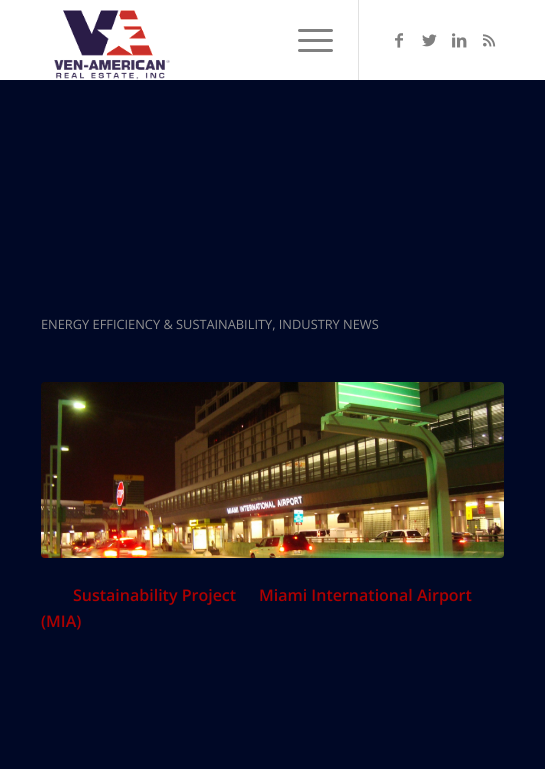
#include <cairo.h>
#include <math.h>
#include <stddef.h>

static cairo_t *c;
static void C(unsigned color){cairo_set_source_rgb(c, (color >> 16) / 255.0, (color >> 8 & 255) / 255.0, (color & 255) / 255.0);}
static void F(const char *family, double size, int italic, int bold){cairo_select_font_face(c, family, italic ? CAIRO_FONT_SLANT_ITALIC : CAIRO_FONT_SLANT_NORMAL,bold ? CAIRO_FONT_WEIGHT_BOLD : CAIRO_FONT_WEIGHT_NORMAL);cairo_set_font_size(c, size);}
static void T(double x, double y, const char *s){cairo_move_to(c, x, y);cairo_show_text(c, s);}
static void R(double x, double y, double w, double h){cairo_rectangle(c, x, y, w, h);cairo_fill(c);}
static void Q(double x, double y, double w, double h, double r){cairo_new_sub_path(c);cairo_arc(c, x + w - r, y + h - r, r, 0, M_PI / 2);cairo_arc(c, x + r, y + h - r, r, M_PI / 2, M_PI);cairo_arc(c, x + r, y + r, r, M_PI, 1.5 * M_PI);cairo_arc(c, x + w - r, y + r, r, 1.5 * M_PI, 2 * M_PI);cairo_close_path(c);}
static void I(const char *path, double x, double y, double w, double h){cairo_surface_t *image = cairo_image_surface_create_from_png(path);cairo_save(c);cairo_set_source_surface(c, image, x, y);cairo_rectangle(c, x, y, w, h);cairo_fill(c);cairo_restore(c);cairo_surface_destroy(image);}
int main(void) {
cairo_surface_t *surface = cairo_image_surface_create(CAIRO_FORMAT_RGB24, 545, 769);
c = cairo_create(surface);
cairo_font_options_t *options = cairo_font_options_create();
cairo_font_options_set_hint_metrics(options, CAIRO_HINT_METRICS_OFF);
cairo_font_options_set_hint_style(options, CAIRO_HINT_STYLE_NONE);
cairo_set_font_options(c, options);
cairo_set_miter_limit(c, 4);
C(0xffffff);
cairo_paint(c);
I("1.png",54,10,116,70);
C(0xe1e1e1);
R(358,0,1,80);
C(0x808080);
Q(298,39,35,3,1.5);
cairo_fill(c);
Q(298,29,35,3,1.5);
cairo_fill(c);
Q(298,49,35,3,1.5);
cairo_fill(c);
I("2.png",395,33,8,15);
I("3.png",422,34,15,13);
I("4.png",452,33,15,15);
I("5.png",483,34,13,13);
C(0x000826);
R(0,80,545,689);
F("Open Sans",12.8,0,0);
C(0x919191);
T(41,329,"ENERGY EFFICIENCY & SUSTAINABILITY, INDUSTRY NEWS");
I("6.png",41,382,463,176);
F("Open Sans SemiBold",16,0,0);
C(0xae0000);
T(73,601,"Sustainability Project");
T(259,601,"Miami International Airport");
T(41,627,"(MIA)");
cairo_surface_write_to_png(surface, "o.png");
cairo_font_options_destroy(options);
cairo_destroy(c);
cairo_surface_destroy(surface);
return 0;
}
